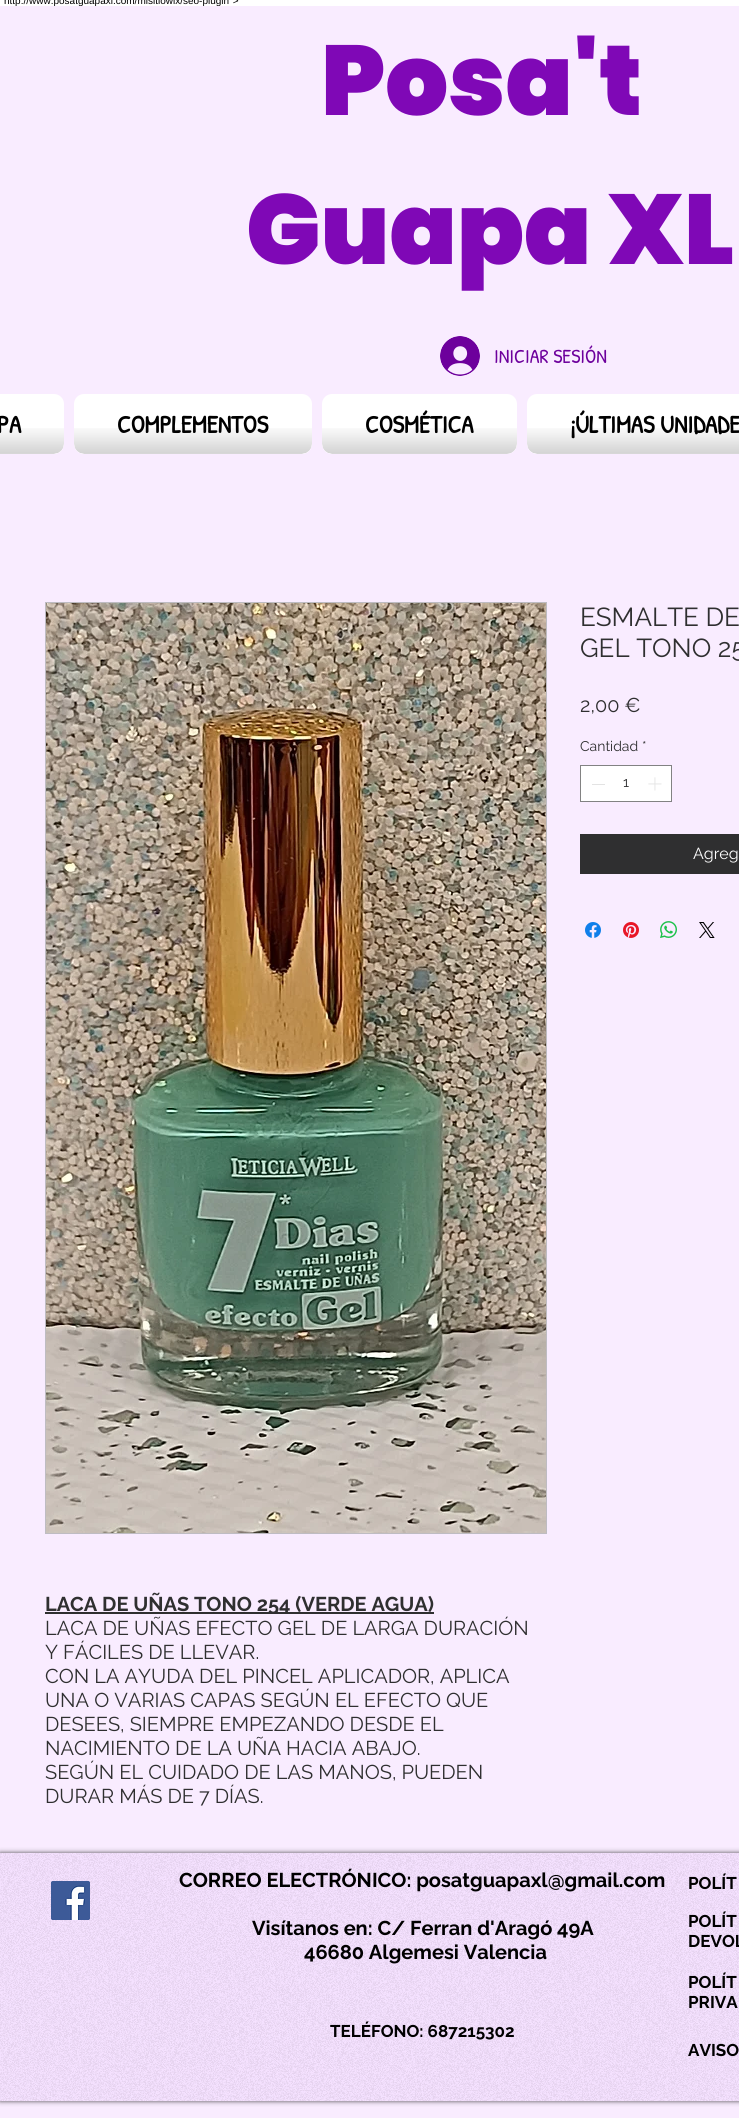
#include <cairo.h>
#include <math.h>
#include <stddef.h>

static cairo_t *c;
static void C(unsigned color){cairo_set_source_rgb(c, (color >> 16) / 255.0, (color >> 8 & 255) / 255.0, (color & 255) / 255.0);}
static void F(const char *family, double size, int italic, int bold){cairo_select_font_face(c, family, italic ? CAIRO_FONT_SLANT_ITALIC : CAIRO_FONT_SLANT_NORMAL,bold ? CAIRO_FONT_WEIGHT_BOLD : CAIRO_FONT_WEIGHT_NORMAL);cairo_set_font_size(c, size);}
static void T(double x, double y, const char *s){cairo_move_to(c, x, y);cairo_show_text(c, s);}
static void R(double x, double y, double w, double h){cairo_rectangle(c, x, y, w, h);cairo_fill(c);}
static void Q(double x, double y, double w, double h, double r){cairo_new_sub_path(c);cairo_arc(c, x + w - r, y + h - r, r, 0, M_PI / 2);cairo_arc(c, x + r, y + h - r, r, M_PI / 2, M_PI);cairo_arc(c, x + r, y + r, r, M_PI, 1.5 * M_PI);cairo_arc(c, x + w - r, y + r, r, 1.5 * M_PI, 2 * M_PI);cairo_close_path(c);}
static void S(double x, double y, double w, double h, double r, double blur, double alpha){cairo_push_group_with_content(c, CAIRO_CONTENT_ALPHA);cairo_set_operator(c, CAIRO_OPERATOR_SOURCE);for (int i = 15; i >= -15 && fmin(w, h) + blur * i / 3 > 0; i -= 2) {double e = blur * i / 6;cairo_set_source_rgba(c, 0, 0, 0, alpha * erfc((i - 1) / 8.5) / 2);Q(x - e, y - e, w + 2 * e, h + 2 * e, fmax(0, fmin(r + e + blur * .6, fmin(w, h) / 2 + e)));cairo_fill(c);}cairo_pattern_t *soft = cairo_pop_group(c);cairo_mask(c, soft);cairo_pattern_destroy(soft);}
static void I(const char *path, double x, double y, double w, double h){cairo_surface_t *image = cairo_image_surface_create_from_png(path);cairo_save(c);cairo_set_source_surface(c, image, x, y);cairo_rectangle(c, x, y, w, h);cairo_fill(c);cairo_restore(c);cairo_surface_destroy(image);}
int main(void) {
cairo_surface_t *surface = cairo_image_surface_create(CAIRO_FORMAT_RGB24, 739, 2118);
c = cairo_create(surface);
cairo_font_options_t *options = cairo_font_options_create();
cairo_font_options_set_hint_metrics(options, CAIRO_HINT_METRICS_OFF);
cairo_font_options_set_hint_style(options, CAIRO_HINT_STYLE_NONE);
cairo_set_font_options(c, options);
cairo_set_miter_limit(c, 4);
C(0xffffff);
cairo_paint(c);
F("Liberation Sans",10,0,0);
C(0x000000);
T(4,4,"http://www.posatguapaxl.com/misitiowix/seo-plugin\">");
C(0xf9ecff);
R(0,6,739,2112);
F("Poppins Black",99,0,0);
C(0x7f08b6);
T(321,115,"Posa't");
T(246,264,"Guapa XL");
I("1.png",440,336,40,40);
F("Patrick Hand",20,0,0);
C(0x6d009c);
T(494,363,"INICIAR SESIÓN");
C(0xffffff);
Q(-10,394,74,60,10);
cairo_fill(c);
I("2.png",0,428,64,26);
F("Patrick Hand",25,0,1);
C(0x000000);
T(-3,433,"PA");
C(0xffffff);
Q(74,394,238,60,10);
cairo_fill(c);
I("3.png",74,428,238,26);
C(0x000000);
T(117,433,"COMPLEMENTOS");
C(0xffffff);
Q(322,394,195,60,10);
cairo_fill(c);
I("4.png",322,428,195,26);
C(0x000000);
T(365,433,"COSMÉTICA");
C(0xffffff);
Q(527,394,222,60,10);
cairo_fill(c);
I("5.png",527,428,212,26);
C(0x000000);
T(570,433,"¡ÚLTIMAS UNIDADE");
F("Raleway",26,0,0);
C(0x2f2f30);
T(580,626,"ESMALTE DE");
T(580,657,"GEL TONO 25");
F("Raleway",20,0,0);
T(580,712,"2,00 €");
F("Raleway",14,0,0);
T(580,751,"Cantidad");
T(642,751,"*");
C(0xffffff);
cairo_rectangle(c,580.5,765.5,91,36);
cairo_fill_preserve(c);
C(0x828283);
cairo_set_line_width(c,1);
cairo_stroke(c);
C(0xe3e3e3);
R(592,784,13,1);
C(0x2f2f30);
T(623,787,"1");
I("6.png",648,777,14,14);
R(580,834,159,40);
F("Raleway",16,0,0);
C(0xffffff);
T(693,859,"Agreg");
I("7.png",585,922,16,16);
I("8.png",623,922,16,16);
I("9.png",660,921,17,17);
I("10.png",699,922,16,16);
cairo_rectangle(c,45.5,602.5,501,931);
C(0xbebcc2);
cairo_stroke(c);
I("11.png",46,603,500,930);
C(0x2f2f30);
R(45,1612,389,2);
F("Raleway",20,0,1);
T(45,1611,"LACA DE UÑAS TONO 254 (VERDE AGUA)");
F("Raleway",20,0,0);
T(45,1635,"LACA DE UÑAS EFECTO GEL DE LARGA DURACIÓN");
T(45,1659,"Y FÁCILES DE LLEVAR.");
T(45,1683,"CON LA AYUDA DEL PINCEL APLICADOR, APLICA");
T(45,1707,"UNA O VARIAS CAPAS SEGÚN EL EFECTO QUE");
T(45,1731,"DESEES, SIEMPRE EMPEZANDO DESDE EL");
T(45,1755,"NACIMIENTO DE LA UÑA HACIA ABAJO.");
T(45,1779,"SEGÚN EL CUIDADO DE LAS MANOS, PUEDEN");
T(45,1803,"DURAR MÁS DE 7 DÍAS.");
C(0x000000);
S(0,1853,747,248,0,2.5,.7);
C(0xf5e1ff);
R(0,1853,739,248);
I("12.png",0,1853,739,248);
I("13.png",51,1881,39,39);
F("Raleway",20,0,1);
C(0x000000);
T(179,1887,"CORREO ELECTRÓNICO: posatguapaxl@gmail.com");
T(252,1935,"Visítanos en: C/ Ferran d'Aragó 49A");
T(304,1959,"46680 Algemesi Valencia");
F("Raleway",17,0,1);
T(688,1889,"POLÍT");
T(688,1927,"POLÍT");
T(688,1947,"DEVOL");
T(688,1988,"POLÍT");
T(688,2008,"PRIVA");
T(330,2037,"TELÉFONO: 687215302");
T(688,2056,"AVISO");
cairo_surface_write_to_png(surface, "o.png");
cairo_font_options_destroy(options);
cairo_destroy(c);
cairo_surface_destroy(surface);
return 0;
}
